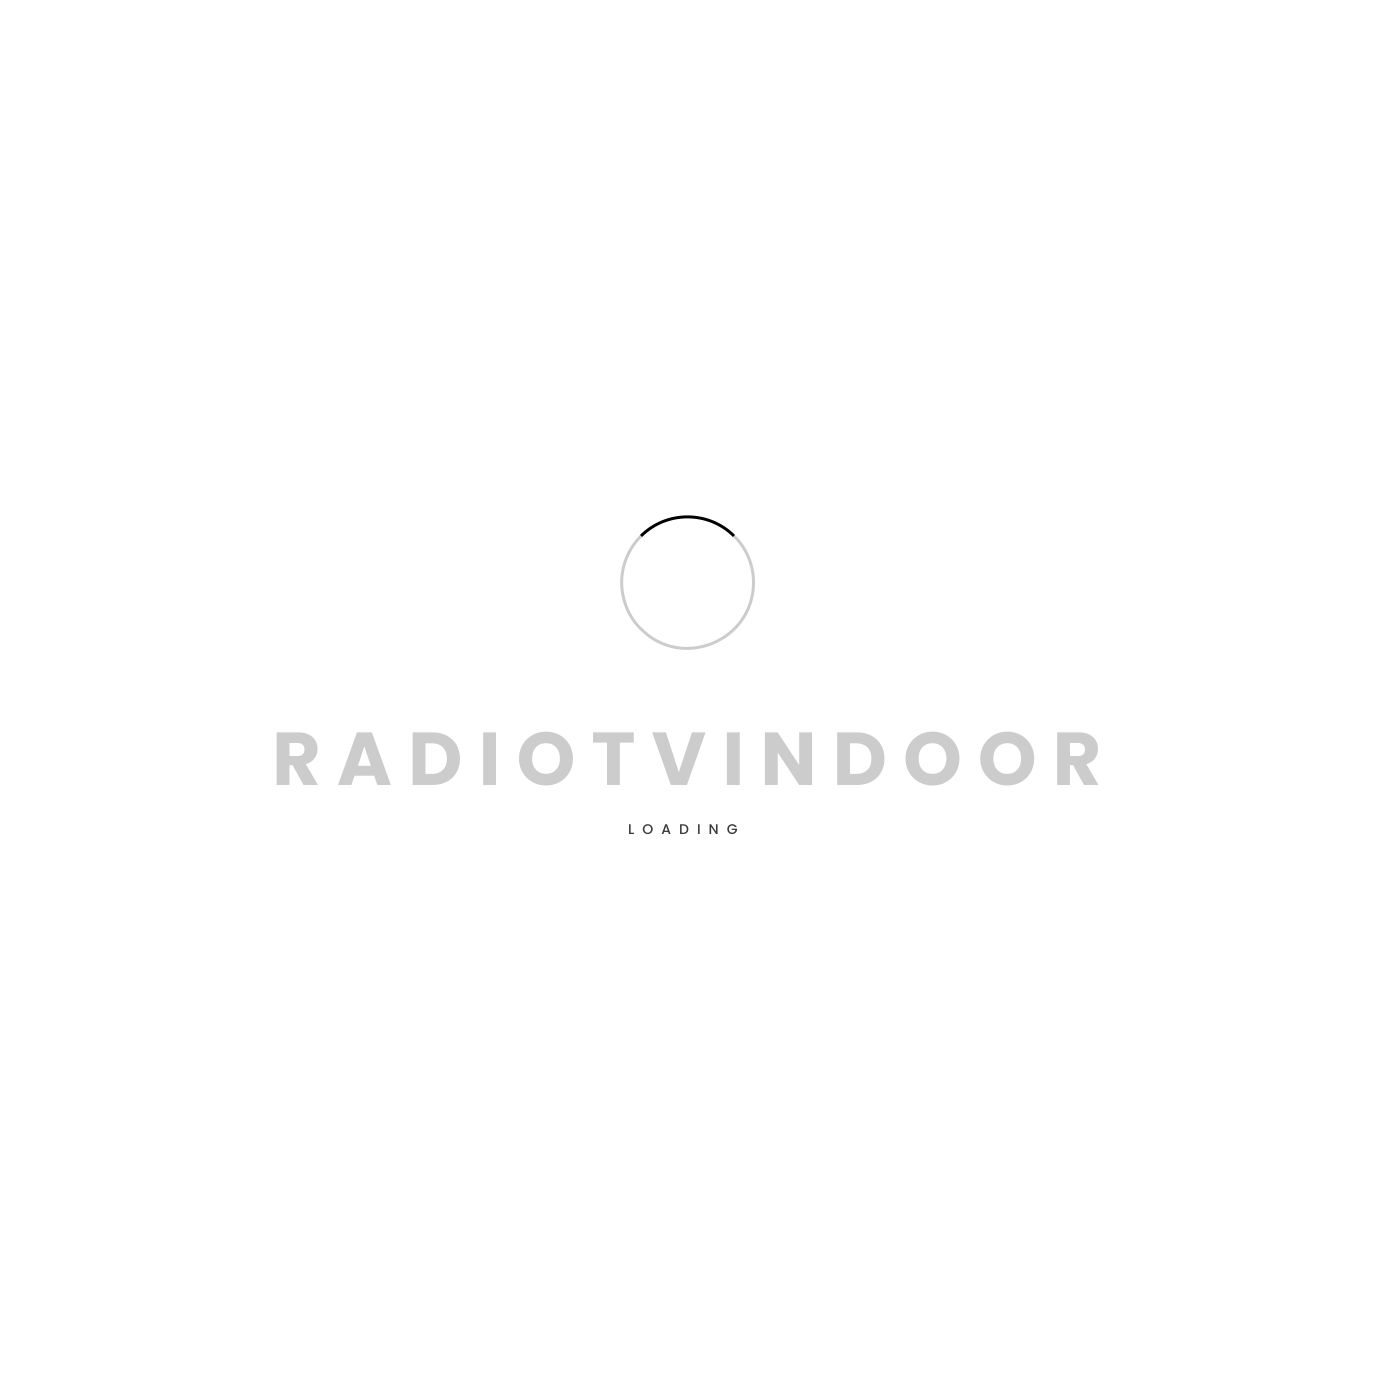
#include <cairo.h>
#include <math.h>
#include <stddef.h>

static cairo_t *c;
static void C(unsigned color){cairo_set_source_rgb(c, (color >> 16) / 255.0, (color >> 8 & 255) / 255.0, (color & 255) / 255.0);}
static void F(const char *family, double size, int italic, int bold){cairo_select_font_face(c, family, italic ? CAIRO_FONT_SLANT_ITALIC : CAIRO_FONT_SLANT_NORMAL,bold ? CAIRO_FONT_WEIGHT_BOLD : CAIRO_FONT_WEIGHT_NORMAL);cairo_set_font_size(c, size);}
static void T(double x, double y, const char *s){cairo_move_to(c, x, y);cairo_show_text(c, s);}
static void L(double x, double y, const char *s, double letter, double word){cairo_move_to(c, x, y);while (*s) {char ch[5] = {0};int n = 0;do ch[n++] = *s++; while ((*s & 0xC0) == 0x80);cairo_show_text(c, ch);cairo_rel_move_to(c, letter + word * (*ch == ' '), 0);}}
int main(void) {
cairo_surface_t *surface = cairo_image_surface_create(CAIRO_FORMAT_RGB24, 1374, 1374);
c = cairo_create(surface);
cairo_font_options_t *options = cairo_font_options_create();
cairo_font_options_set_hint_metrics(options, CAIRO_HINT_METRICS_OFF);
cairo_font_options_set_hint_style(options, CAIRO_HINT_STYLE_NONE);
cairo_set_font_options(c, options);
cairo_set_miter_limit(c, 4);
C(0xffffff);
cairo_paint(c);
cairo_new_path(c);
cairo_move_to(c,641,536);
cairo_curve_to(c,666.5,510.5,708.5,510.5,734,536);
C(0x000000);
cairo_set_line_width(c,3);
cairo_stroke(c);
cairo_new_path(c);
cairo_move_to(c,734,536);
cairo_curve_to(c,746.5,548,753.5,565,753.5,582.5);
cairo_curve_to(c,753.5,641,682,670.5,641,629);
cairo_curve_to(c,631.5,620,625.5,608,623,595.5);
cairo_curve_to(c,618.5,574,625.5,551.5,641,536);
cairo_set_source_rgba(c,0,0,0,0.2);
cairo_stroke(c);
F("Poppins",75,0,1);
C(0xcccccc);
T(272,785,"R A D I O T V I N D O O R");
F("Poppins Medium",14,0,0);
C(0x3b3b3b);
L(628,834,"LOADING",8,0);
cairo_surface_write_to_png(surface, "o.png");
cairo_font_options_destroy(options);
cairo_destroy(c);
cairo_surface_destroy(surface);
return 0;
}
